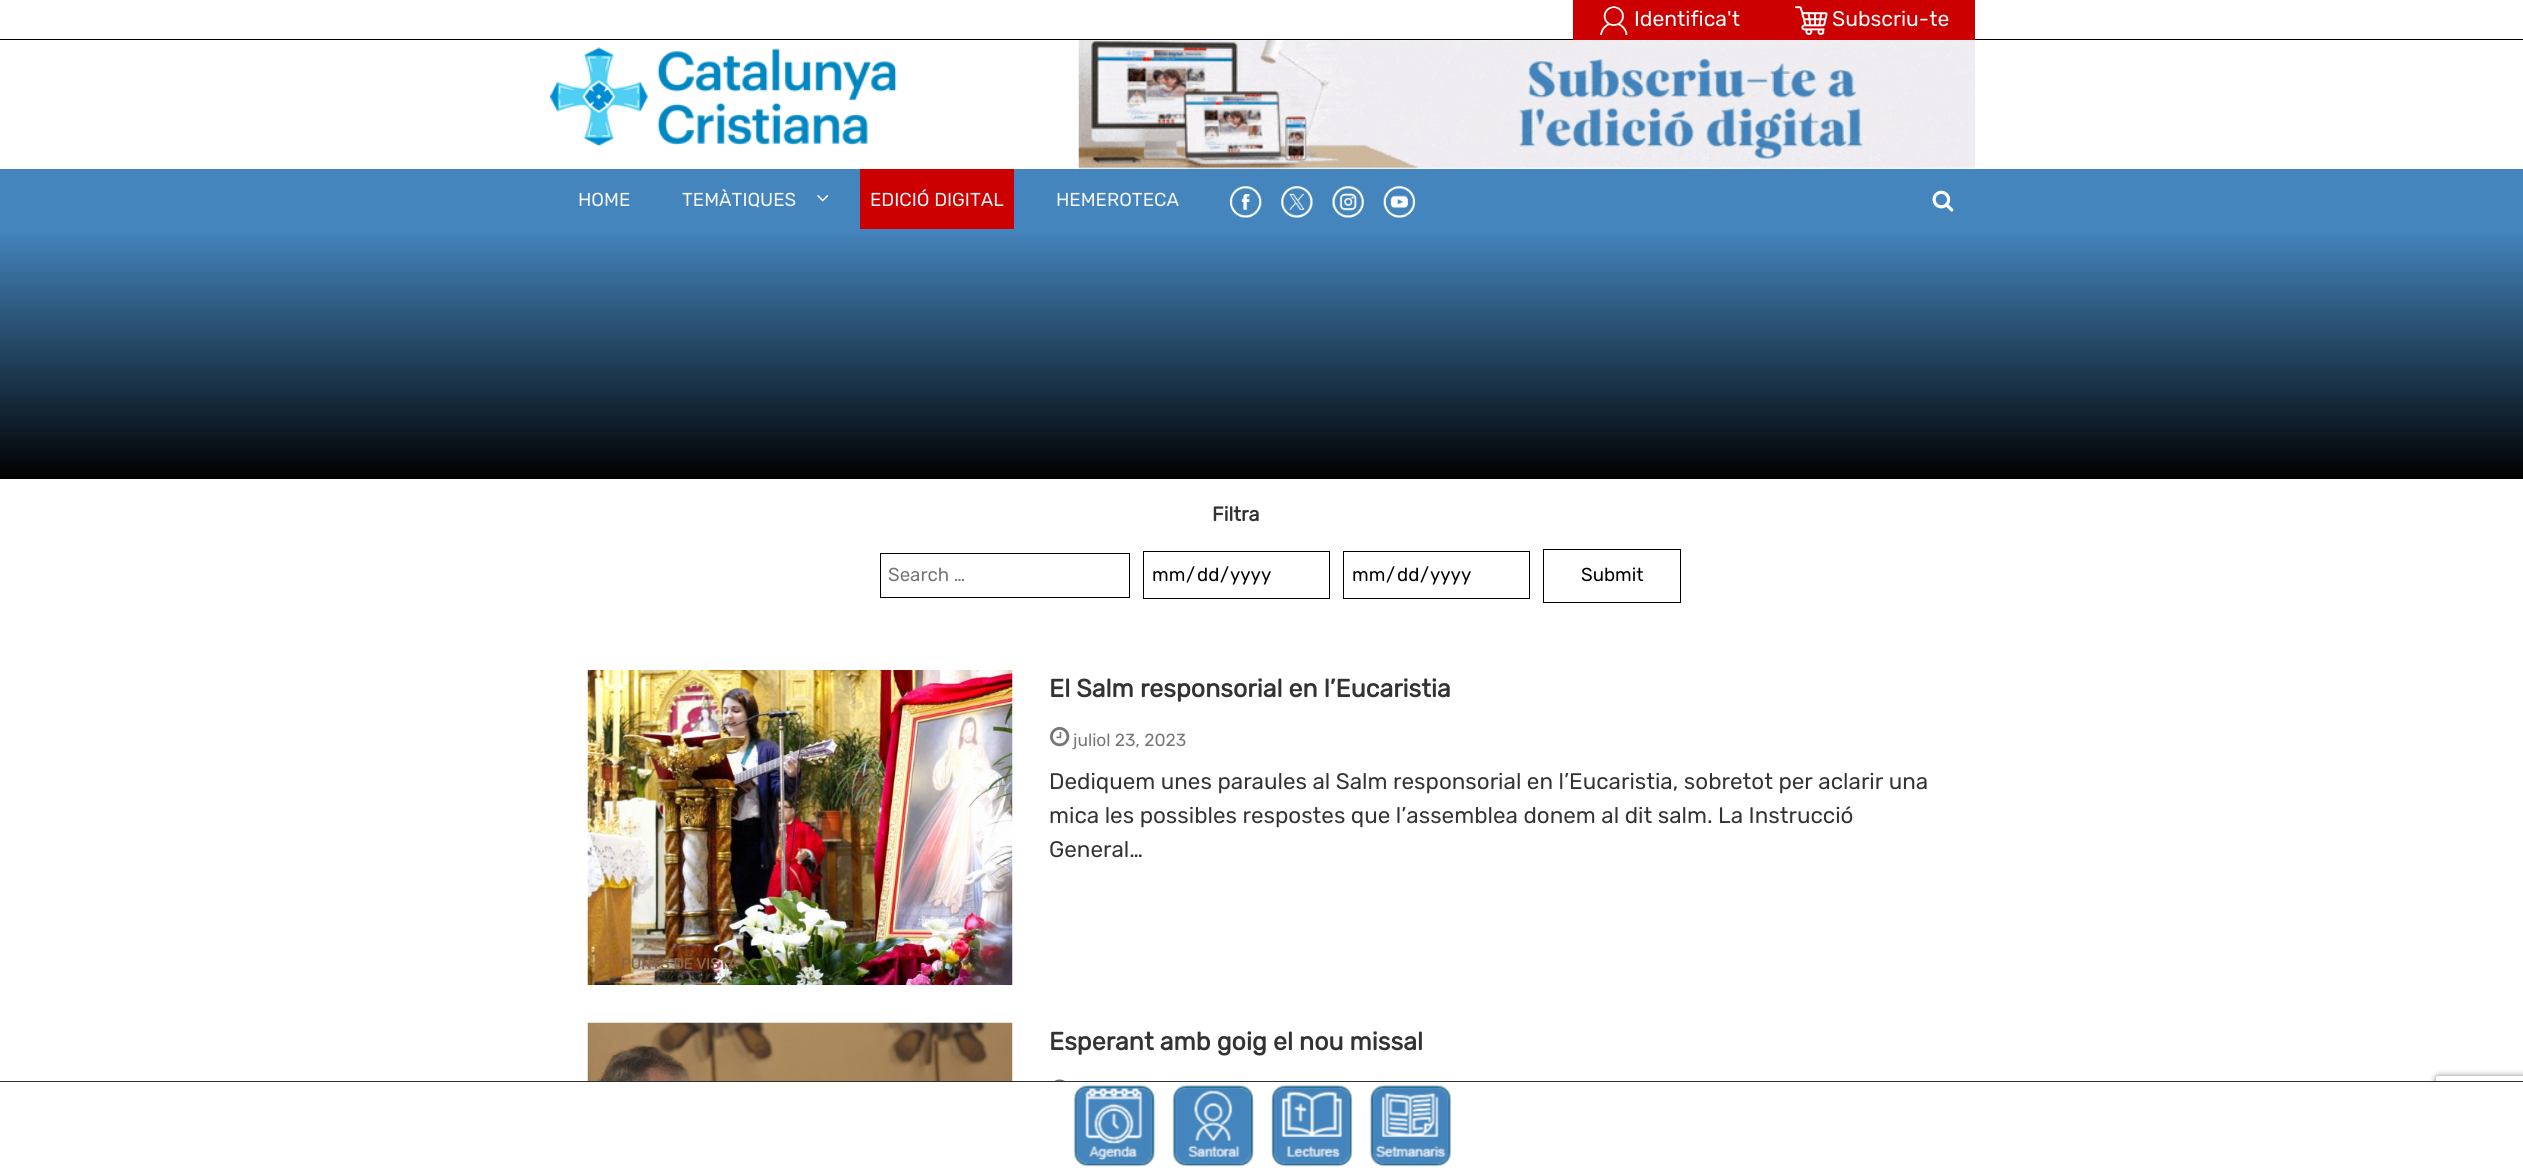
#include <cairo.h>
#include <math.h>
#include <stddef.h>

static cairo_t *c;
static void C(unsigned color){cairo_set_source_rgb(c, (color >> 16) / 255.0, (color >> 8 & 255) / 255.0, (color & 255) / 255.0);}
static void F(const char *family, double size, int italic, int bold){cairo_select_font_face(c, family, italic ? CAIRO_FONT_SLANT_ITALIC : CAIRO_FONT_SLANT_NORMAL,bold ? CAIRO_FONT_WEIGHT_BOLD : CAIRO_FONT_WEIGHT_NORMAL);cairo_set_font_size(c, size);}
static void T(double x, double y, const char *s){cairo_move_to(c, x, y);cairo_show_text(c, s);}
static void R(double x, double y, double w, double h){cairo_rectangle(c, x, y, w, h);cairo_fill(c);}
static void Q(double x, double y, double w, double h, double r){cairo_new_sub_path(c);cairo_arc(c, x + w - r, y + h - r, r, 0, M_PI / 2);cairo_arc(c, x + r, y + h - r, r, M_PI / 2, M_PI);cairo_arc(c, x + r, y + r, r, M_PI, 1.5 * M_PI);cairo_arc(c, x + w - r, y + r, r, 1.5 * M_PI, 2 * M_PI);cairo_close_path(c);}
static void S(double x, double y, double w, double h, double r, double blur, double alpha){cairo_push_group_with_content(c, CAIRO_CONTENT_ALPHA);cairo_set_operator(c, CAIRO_OPERATOR_SOURCE);for (int i = 15; i >= -15 && fmin(w, h) + blur * i / 3 > 0; i -= 2) {double e = blur * i / 6;cairo_set_source_rgba(c, 0, 0, 0, alpha * erfc((i - 1) / 8.5) / 2);Q(x - e, y - e, w + 2 * e, h + 2 * e, fmax(0, fmin(r + e + blur * .6, fmin(w, h) / 2 + e)));cairo_fill(c);}cairo_pattern_t *soft = cairo_pop_group(c);cairo_mask(c, soft);cairo_pattern_destroy(soft);}
static void I(const char *path, double x, double y, double w, double h){cairo_surface_t *image = cairo_image_surface_create_from_png(path);cairo_save(c);cairo_set_source_surface(c, image, x, y);cairo_rectangle(c, x, y, w, h);cairo_fill(c);cairo_restore(c);cairo_surface_destroy(image);}
int main(void) {
cairo_surface_t *surface = cairo_image_surface_create(CAIRO_FORMAT_RGB24, 2523, 1168);
c = cairo_create(surface);
cairo_font_options_t *options = cairo_font_options_create();
cairo_font_options_set_hint_metrics(options, CAIRO_HINT_METRICS_OFF);
cairo_font_options_set_hint_style(options, CAIRO_HINT_STYLE_NONE);
cairo_set_font_options(c, options);
cairo_set_miter_limit(c, 4);
cairo_pattern_t *gradient;
C(0xffffff);
cairo_paint(c);
C(0x000000);
R(0,39,2523,1);
C(0xcc0000);
R(1573,0,402,40);
I("1.png",1600,6,28,29);
F("Rubik",21.25,0,0);
C(0xffffff);
T(1634,26,"Identifica't");
I("2.png",1795,6,33,29);
T(1832,26,"Subscriu-te");
I("3.png",550,47,347,100);
I("4.png",1078,40,897,129);
C(0x4485bd);
R(0,169,2523,60);
F("Rubik",18.75,0,0);
C(0xf5f5f5);
T(578,206,"HOME");
T(682,206,"TEMÀTIQUES");
I("5.png",817,195,12,7);
C(0xcc0000);
R(860,169,154,60);
C(0xf5f5f5);
T(870,206,"EDICIÓ DIGITAL");
T(1056,206,"HEMEROTECA");
I("6.png",1230,186,32,32);
I("7.png",1281,186,32,32);
I("8.png",1332,186,32,32);
I("9.png",1383,186,32,32);
I("10.png",1932,190,22,22);
gradient = cairo_pattern_create_linear(1262,229,1262,479);
cairo_pattern_add_color_stop_rgba(gradient,0,0.267,0.522,0.745,1);
cairo_pattern_add_color_stop_rgba(gradient,1,0,0,0,1);
cairo_set_source(c,gradient);
cairo_pattern_destroy(gradient);
R(0,229,2523,250);
cairo_rectangle(c,880.5,553.5,249,44);
C(0x000000);
cairo_set_line_width(c,1);
cairo_stroke(c);
C(0x757575);
T(888,581,"Search …");
F("Rubik",20,0,1);
C(0x333333);
T(1212,521,"Filtra");
cairo_rectangle(c,1143.5,551.5,186,47);
C(0x000000);
cairo_stroke(c);
F("Rubik",18.75,0,0);
T(1152,581,"mm");
T(1186,581,"/");
T(1197,581,"dd");
T(1220,581,"/");
T(1230,581,"yyyy");
cairo_rectangle(c,1343.5,551.5,186,47);
cairo_stroke(c);
T(1352,581,"mm");
T(1386,581,"/");
T(1397,581,"dd");
T(1420,581,"/");
T(1430,581,"yyyy");
cairo_rectangle(c,1543.5,549.5,137,53);
cairo_stroke(c);
T(1581,581,"Submit");
F("Rubik",25,0,1);
C(0x333333);
T(1049,697,"El Salm responsorial en l’Eucaristia");
I("11.png",1050,727,20,20);
F("Rubik",17.5,0,0);
C(0x757575);
T(1073,746,"juliol 23, 2023");
F("Rubik",22.5,0,0);
C(0x333333);
T(1049,789,"Dediquem unes paraules al Salm responsorial en l’Eucaristia, sobretot per aclarir una");
T(1049,823,"mica les possibles respostes que l’assemblea donem al dit salm. La Instrucció");
T(1049,857,"General…");
I("12.png",587,670,426,315);
F("Rubik",15,0,1);
C(0x896547);
T(621,969,"PUNTS DE VISTA");
I("13.png",587,1022,426,59);
F("Rubik",25,0,1);
C(0x333333);
T(1049,1050,"Esperant amb goig el nou missal");
I("14.png",1054,1079,11,2);
cairo_save(c);
cairo_set_fill_rule(c,CAIRO_FILL_RULE_EVEN_ODD);
cairo_new_path(c);
cairo_move_to(c,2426,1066);
cairo_line_to(c,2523,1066);
cairo_line_to(c,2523,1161);
cairo_line_to(c,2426,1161);
cairo_close_path(c);
cairo_move_to(c,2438.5,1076);
cairo_line_to(c,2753.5,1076);
cairo_curve_to(c,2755,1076,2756,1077,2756,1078.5);
cairo_line_to(c,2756,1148.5);
cairo_curve_to(c,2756,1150,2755,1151,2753.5,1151);
cairo_line_to(c,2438.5,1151);
cairo_curve_to(c,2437,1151,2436,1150,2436,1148.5);
cairo_line_to(c,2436,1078.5);
cairo_curve_to(c,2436,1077,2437,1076,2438.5,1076);
cairo_close_path(c);
cairo_clip(c);
C(0x808080);
S(2436,1076,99,75,2.5,3,1);
cairo_restore(c);
C(0xffffff);
R(2430,1082,93,75);
C(0x272f32);
R(0,1081,2523,1);
I("15.png",1073,1084,83,83);
I("16.png",1172,1085,82,82);
I("17.png",1271,1085,82,82);
I("18.png",1369,1085,83,82);
cairo_surface_write_to_png(surface, "o.png");
cairo_font_options_destroy(options);
cairo_destroy(c);
cairo_surface_destroy(surface);
return 0;
}
